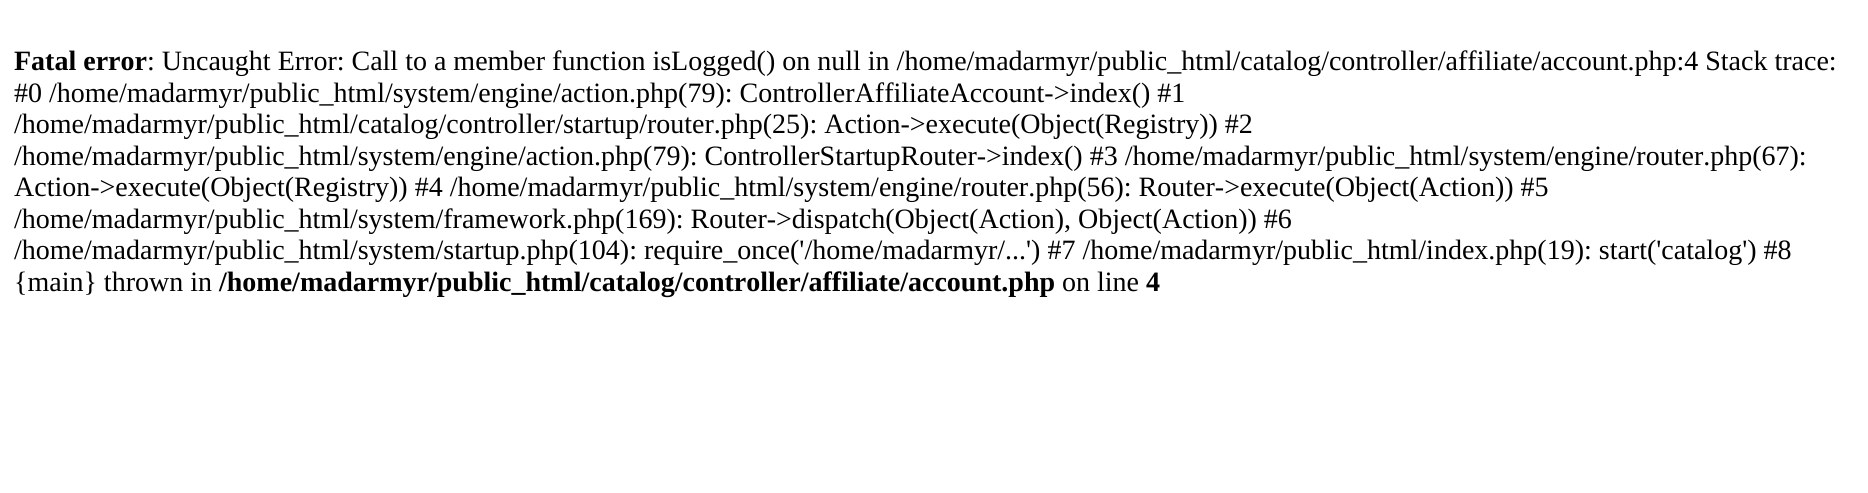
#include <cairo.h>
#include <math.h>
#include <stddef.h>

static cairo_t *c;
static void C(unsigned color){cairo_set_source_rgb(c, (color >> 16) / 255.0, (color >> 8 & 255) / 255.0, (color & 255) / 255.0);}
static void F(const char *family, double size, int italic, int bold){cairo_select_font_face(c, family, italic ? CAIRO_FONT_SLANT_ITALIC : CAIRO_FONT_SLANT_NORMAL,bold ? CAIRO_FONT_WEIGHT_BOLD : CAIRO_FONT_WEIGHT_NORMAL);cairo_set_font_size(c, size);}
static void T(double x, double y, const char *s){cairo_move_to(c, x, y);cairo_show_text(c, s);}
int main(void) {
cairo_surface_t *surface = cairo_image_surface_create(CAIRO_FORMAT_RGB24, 1868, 493);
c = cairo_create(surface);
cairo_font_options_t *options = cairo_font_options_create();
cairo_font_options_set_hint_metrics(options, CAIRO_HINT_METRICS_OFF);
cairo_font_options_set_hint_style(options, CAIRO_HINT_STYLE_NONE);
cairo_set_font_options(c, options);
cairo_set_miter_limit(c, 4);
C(0xffffff);
cairo_paint(c);
F("Liberation Serif",28,0,1);
C(0x000000);
T(14,70,"Fatal error");
F("Liberation Serif",28,0,0);
T(147,70,": Uncaught Error: Call to a member function isLogged() on null in /home/madarmyr/public_html/catalog/controller/affiliate/account.php:4 Stack trace:");
T(14,102,"#0 /home/madarmyr/public_html/system/engine/action.php(79): ControllerAffiliateAccount->index() #1");
T(14,133,"/home/madarmyr/public_html/catalog/controller/startup/router.php(25): Action->execute(Object(Registry)) #2");
T(14,165,"/home/madarmyr/public_html/system/engine/action.php(79): ControllerStartupRouter->index() #3 /home/madarmyr/public_html/system/engine/router.php(67):");
T(14,196,"Action->execute(Object(Registry)) #4 /home/madarmyr/public_html/system/engine/router.php(56): Router->execute(Object(Action)) #5");
T(14,228,"/home/madarmyr/public_html/system/framework.php(169): Router->dispatch(Object(Action), Object(Action)) #6");
T(14,259,"/home/madarmyr/public_html/system/startup.php(104): require_once('/home/madarmyr/...') #7 /home/madarmyr/public_html/index.php(19): start('catalog') #8");
T(14,291,"{main} thrown in");
F("Liberation Serif",28,0,1);
T(219,291,"/home/madarmyr/public_html/catalog/controller/affiliate/account.php");
F("Liberation Serif",28,0,0);
T(1062,291,"on line");
F("Liberation Serif",28,0,1);
T(1146,291,"4");
cairo_surface_write_to_png(surface, "o.png");
cairo_font_options_destroy(options);
cairo_destroy(c);
cairo_surface_destroy(surface);
return 0;
}
